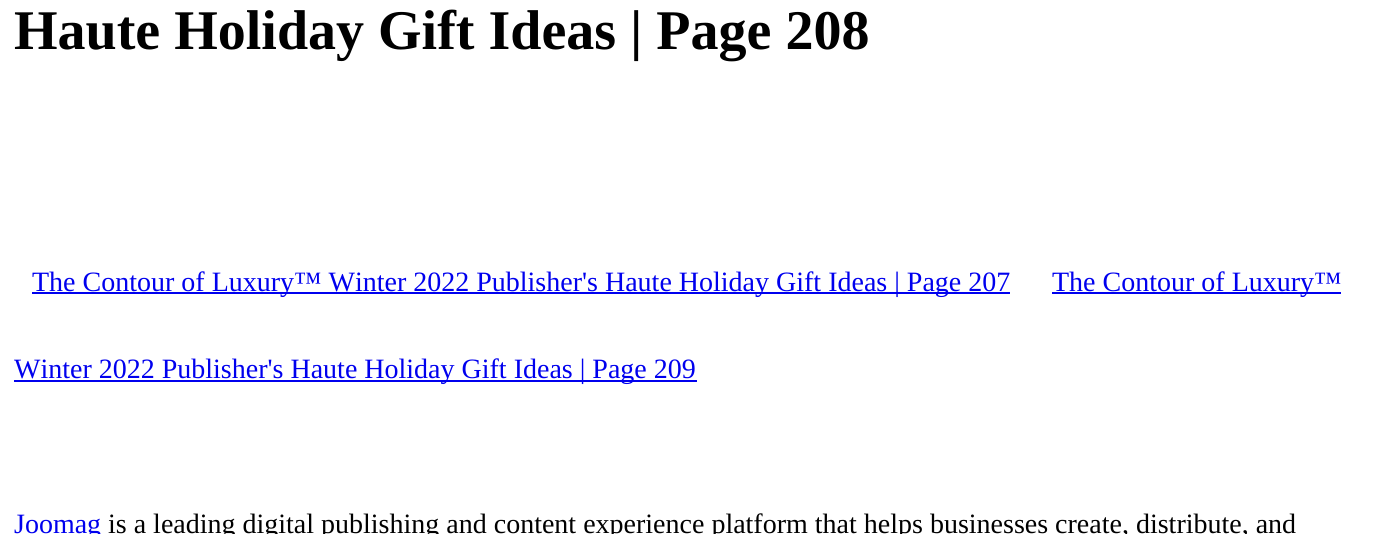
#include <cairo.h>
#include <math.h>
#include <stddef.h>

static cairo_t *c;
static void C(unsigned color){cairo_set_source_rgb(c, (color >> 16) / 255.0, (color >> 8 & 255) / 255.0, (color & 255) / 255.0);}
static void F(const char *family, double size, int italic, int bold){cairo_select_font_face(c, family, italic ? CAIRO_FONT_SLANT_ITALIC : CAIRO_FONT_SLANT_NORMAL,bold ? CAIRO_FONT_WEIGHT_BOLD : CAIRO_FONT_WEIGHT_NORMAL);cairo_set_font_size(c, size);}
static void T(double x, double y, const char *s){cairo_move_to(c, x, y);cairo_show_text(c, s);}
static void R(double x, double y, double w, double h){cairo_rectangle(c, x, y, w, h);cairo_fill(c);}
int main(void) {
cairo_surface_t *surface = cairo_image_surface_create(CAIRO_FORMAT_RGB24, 1398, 534);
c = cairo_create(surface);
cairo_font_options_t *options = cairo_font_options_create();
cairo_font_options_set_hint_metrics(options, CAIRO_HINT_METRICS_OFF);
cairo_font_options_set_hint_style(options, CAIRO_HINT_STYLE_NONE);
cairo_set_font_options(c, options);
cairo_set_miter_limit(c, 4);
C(0xffffff);
cairo_paint(c);
F("Liberation Serif",56,0,1);
C(0x000000);
T(14,49,"Haute Holiday Gift Ideas | Page 208");
C(0x0000ee);
R(32,292,978,2);
F("Liberation Serif",28,0,0);
T(32,291,"The Contour of Luxury™ Winter 2022 Publisher's Haute Holiday Gift Ideas | Page 207");
R(1052,292,289,2);
T(1052,291,"The Contour of Luxury™");
R(14,380,683,2);
T(14,378,"Winter 2022 Publisher's Haute Holiday Gift Ideas | Page 209");
T(14,533,"Joomag");
C(0x000000);
T(108,533,"is a leading digital publishing and content experience platform that helps businesses create, distribute, and");
cairo_surface_write_to_png(surface, "o.png");
cairo_font_options_destroy(options);
cairo_destroy(c);
cairo_surface_destroy(surface);
return 0;
}
